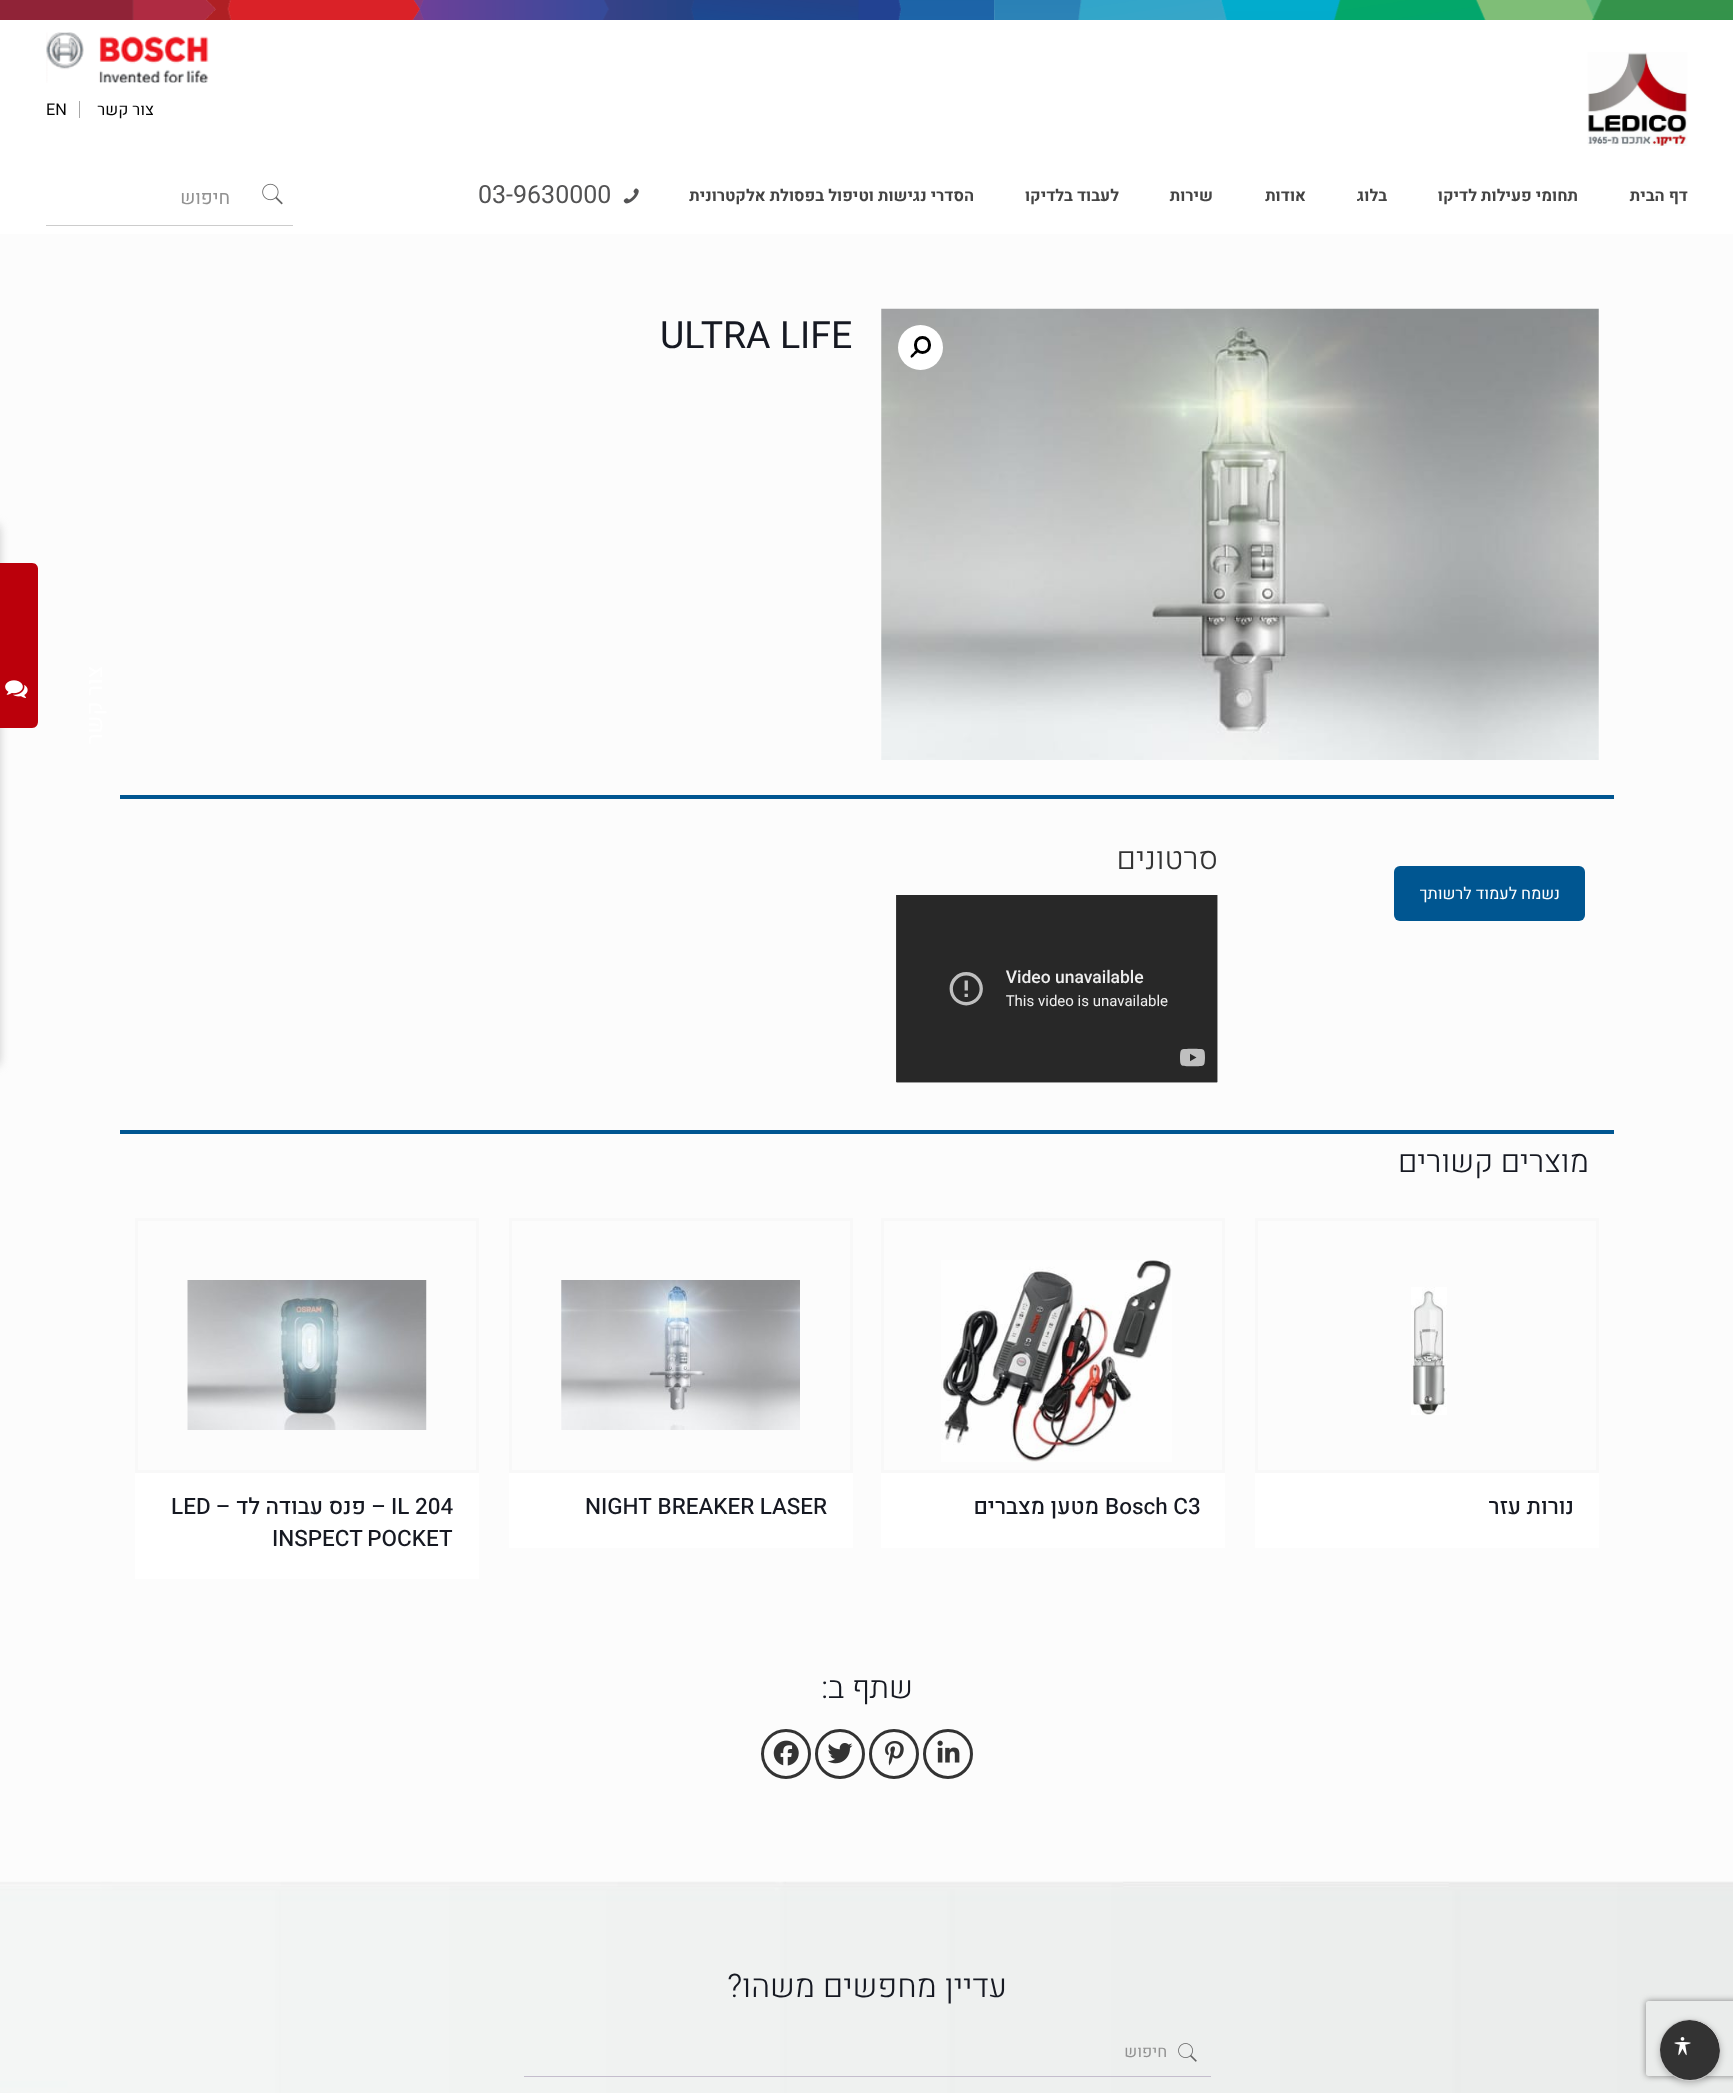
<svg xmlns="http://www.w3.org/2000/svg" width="1733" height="2093">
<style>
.a{font:16.25px Heebo;direction:rtl;fill:#050505}
.b{font:16.25px Heebo;fill:#050505}
.c{font:bold 16.25px Heebo;direction:rtl;fill:#444}
.d{font:25px Heebo;fill:#535354}
.e{font:19px Heebo;direction:rtl;fill:#929292}
.f{font:37.5px Heebo;fill:#161922}
.g{font:300 31.25px Heebo;direction:rtl;fill:#333}
.h{font:16.25px Heebo;direction:rtl;fill:#fff}
.i{font:300 31.25px Heebo;direction:rtl;fill:#161922}
.j{font:500 22.5px Heebo;direction:rtl;fill:#161922}
.k{font:500 22.5px Heebo;fill:#161922}
.l{font:300 32.5px Heebo;direction:rtl;fill:#161922}
.m{font:16.25px Heebo;direction:rtl;fill:#929292}
.n{font:22.5px Heebo;direction:rtl;fill:#fff}
</style>
<defs>
<clipPath id="clip1"><path d="M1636 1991h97v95h-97zm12.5 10h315c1.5 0 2.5 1 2.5 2.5v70c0 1.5-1 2.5-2.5 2.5h-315c-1.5 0-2.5-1-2.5-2.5v-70c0-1.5 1-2.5 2.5-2.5z" clip-rule="evenodd"/></clipPath>
<clipPath id="clip2"><rect x="1660" y="2020" width="60" height="60" rx="30"/></clipPath>
</defs>
<rect width="100%" height="100%" fill="#fcfcfc"/>
<image href="1.png" x="0" y="0" width="1733" height="20"/>
<path fill="#fff" d="M0 20h1733v214H0z"/>
<image href="2.png" x="1587" y="52" width="101" height="94"/>
<image href="3.png" x="46" y="32" width="163" height="51"/>
<path fill="#a8a8a8" d="M79 101h1v17H79z"/>
<image href="4.png" x="623" y="188" width="16" height="16"/>
<path fill="#ccc" d="M46 225h247v1H46z"/>
<image href="5.png" x="262" y="183" width="21" height="22"/>
<image href="6.png" x="881" y="308" width="718" height="452"/>
<circle fill="#fff" cx="920.5" cy="347.5" r="22.5"/>
<rect fill="none" stroke="#000" stroke-width="3" x="915.5" y="337.5" width="14" height="15" rx="7"/>
<path fill="#000" d="M918 350c1.5 1.5-2 4-3 4.5c-.5 1-3 4-4 3c-1.5-1.5 1.5-4 2.5-4.5c.5-1 3-4 4.5-3z"/>
<path fill="#005691" d="M120 795h1494v4H120z"/>
<image href="7.png" x="896" y="895" width="322" height="188"/>
<rect fill="#005691" x="1394" y="866" width="191" height="55" rx="6"/>
<path fill="#005691" d="M120 1130h1494v4H120z"/>
<path fill="none" stroke="#f8f8f8" stroke-width="3" d="M1256.5 1219.5h341v252H1256.5z"/>
<image href="8.png" x="1411" y="1287" width="36" height="128"/>
<path fill="#fff" d="M1255 1473h344v75H1255z"/>
<path fill="none" stroke="#f8f8f8" stroke-width="3" d="M882.5 1219.5h341v252H882.5z"/>
<image href="9.png" x="941" y="1260" width="231" height="202"/>
<path fill="#fff" d="M881 1473h344v75H881z"/>
<path fill="none" stroke="#f8f8f8" stroke-width="3" d="M510.5 1219.5h341v252H510.5z"/>
<image href="10.png" x="561" y="1280" width="239" height="150"/>
<path fill="#fff" d="M509 1473h344v75H509z"/>
<path fill="none" stroke="#f8f8f8" stroke-width="3" d="M136.5 1219.5h341v252H136.5z"/>
<image href="11.png" x="187" y="1280" width="240" height="150"/>
<path fill="#fff" d="M135 1473h344v106H135z"/>
<circle fill="none" stroke="#333" stroke-width="3" cx="948" cy="1754" r="23.5"/>
<image href="12.png" x="937" y="1740" width="23" height="23"/>
<circle fill="none" stroke="#333" stroke-width="3" cx="894" cy="1754" r="23.5"/>
<image href="13.png" x="885" y="1741" width="19" height="25"/>
<circle fill="none" stroke="#333" stroke-width="3" cx="840" cy="1754" r="23.5"/>
<image href="14.png" x="827" y="1743" width="26" height="21"/>
<circle fill="none" stroke="#333" stroke-width="3" cx="786" cy="1754" r="23.5"/>
<image href="15.png" x="773" y="1740" width="26" height="26"/>
<image href="16.png" x="0" y="1881" width="1733" height="212"/>
<image href="17.png" x="1178" y="2043" width="19" height="19"/>
<path fill="#c4bdcd" d="M524 2076h687v1H524z"/>
<rect fill="#cecece" filter="blur(5px)" x="-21" y="524" width="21" height="542" rx="6"/>
<path fill="#bb000b" d="M-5 728v-165h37c4 0 6 3 6 6v152c0 4-2 7-6 7z"/>
<image href="18.png" x="5" y="680" width="23" height="18"/>
<g clip-path="url(#clip1)">
<rect fill="#808080" filter="blur(3px)" x="1646" y="2001" width="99" height="75" rx="2.5"/>
</g>
<rect fill="#00000033" filter="blur(3px)" x="1659" y="2021" width="62" height="63" rx="31"/>
<circle fill="#f4f4f4" stroke="#ccc" cx="1690" cy="2050" r="30.5"/>
<g clip-path="url(#clip2)">
<rect fill="#333" x="1658" y="2020" width="62" height="63" rx="31"/>
</g>
<path fill="#00000008" d="M1689 2021c-8 0-15 3-21 8c24-25 65 6 48 35c9-19-5-43-27-43z"/>
<image href="19.png" x="1674" y="2037" width="17" height="19"/>
<text class="a" x="154" y="115">צור קשר</text>
<text class="b" x="46" y="115">EN</text>
<text class="c" x="1688" y="201">דף הבית</text>
<text class="c" x="1578" y="201">תחומי פעילות לדיקו</text>
<text class="c" x="1387" y="201">בלוג</text>
<text class="c" x="1306" y="201">אודות</text>
<text class="c" x="1213" y="201">שירות</text>
<text class="c" x="1119" y="201">לעבוד בלדיקו</text>
<text class="c" x="974" y="201">הסדרי נגישות וטיפול בפסולת אלקטרונית</text>
<text class="d" x="478" y="203">03-9630000</text>
<text class="e" x="230" y="204">חיפוש</text>
<text class="f" x="660" y="348">ULTRA LIFE</text>
<text class="g" x="1218" y="869">סרטונים</text>
<text class="h" x="1560" y="899">נשמח לעמוד לרשותך</text>
<text class="i" x="1589" y="1172">מוצרים קשורים</text>
<text class="j" x="1574" y="1514">נורות עזר</text>
<text class="k" x="1105" y="1514">Bosch C3</text>
<text class="j" x="1099" y="1514">מטען מצברים</text>
<text class="k" x="585" y="1514">NIGHT BREAKER LASER</text>
<text class="k" x="391" y="1514">IL 204</text>
<text class="j" x="386" y="1514">– פנס עבודה לד –</text>
<text class="k" x="171" y="1514">LED</text>
<text class="k" x="272" y="1546" word-spacing="-1">INSPECT POCKET</text>
<text class="i" x="913" y="1698">שתף ב:</text>
<text class="l" x="1007" y="1997">עדיין מחפשים משהו?</text>
<text class="m" x="1167" y="2057">חיפוש</text>
<text class="n" x="102" y="666" transform="rotate(-90 102 666)">צור קשר</text>
</svg>
